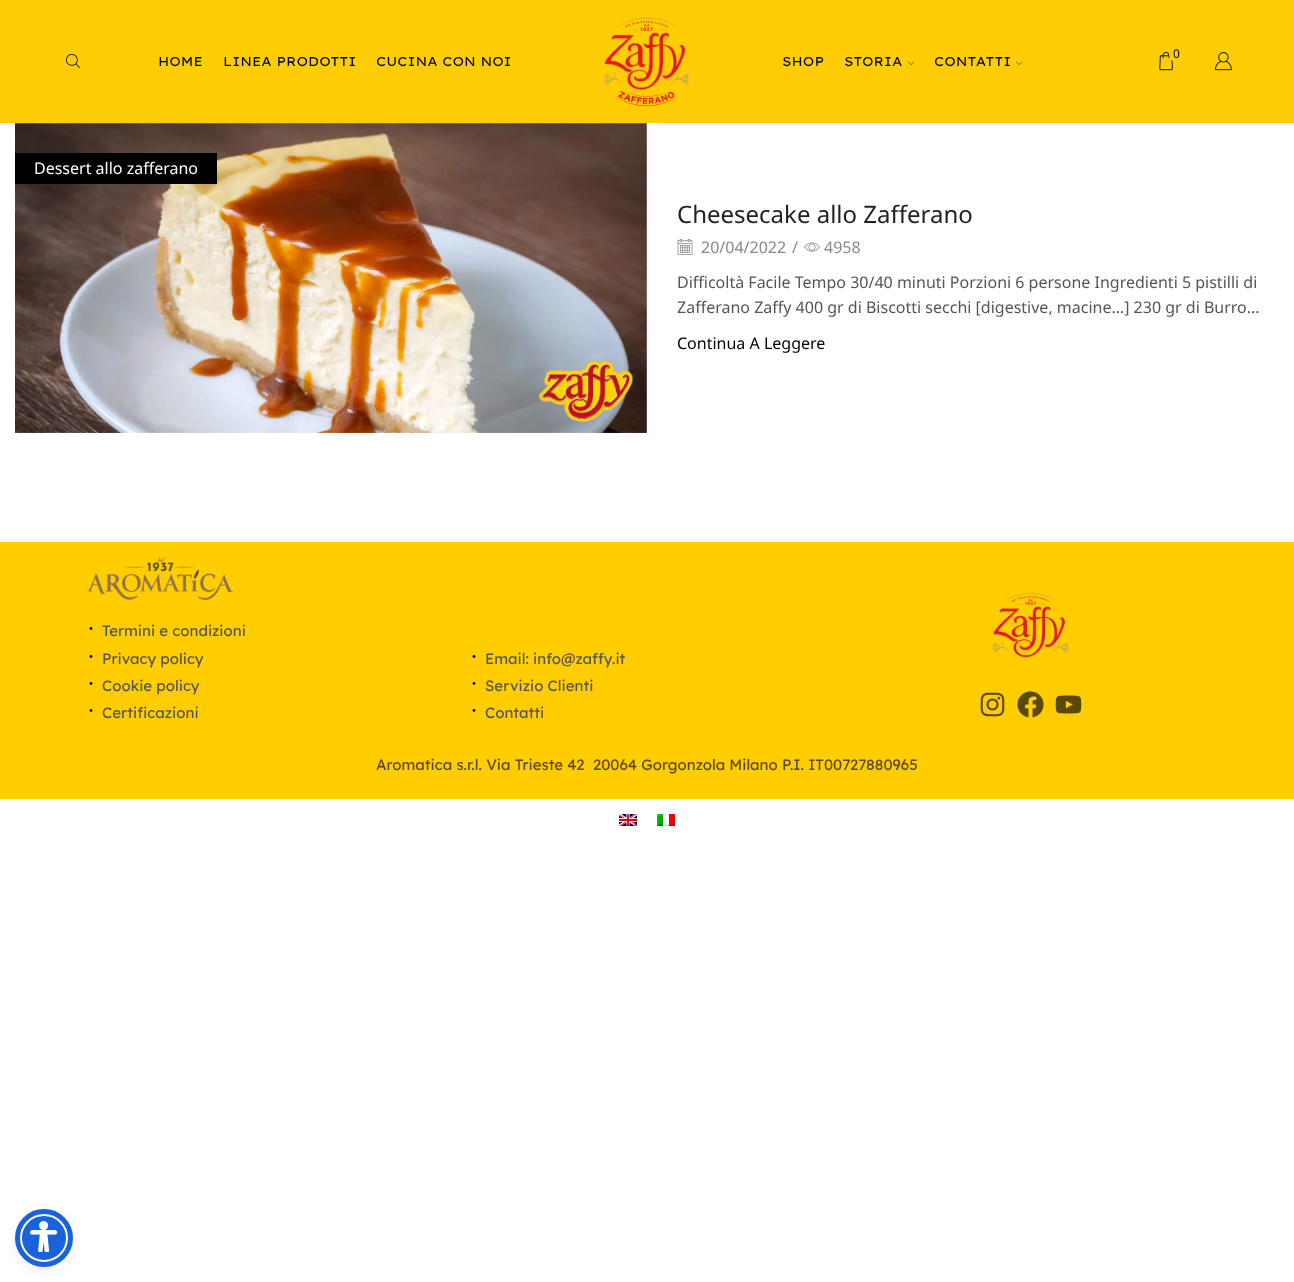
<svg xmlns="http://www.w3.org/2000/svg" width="1294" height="1282">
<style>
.a{font:12.75px Lexend Exa;fill:#000}
.b{font:12px Noto Sans;fill:#000}
.c{font:16px Noto Sans;fill:#fff}
.d{font:24px Noto Sans;fill:#222}
.e{font:16px Noto Sans;fill:#888}
.f{font:16px Noto Sans;fill:#555}
.g{font:16px Noto Sans;fill:#000}
.h{font:15px Lexend;fill:#555}
.i{font:15px Lexend;fill:#5b4801}
</style>
<rect width="100%" height="100%" fill="#fff"/>
<path fill="#ffcd06" d="M0 0h1294v123H0z"/>
<image href="1.png" x="66" y="54" width="14" height="14"/>
<image href="2.png" x="603" y="17" width="87" height="90"/>
<image href="3.png" x="908" y="61" width="6" height="4"/>
<image href="4.png" x="1016" y="61" width="7" height="4"/>
<image href="5.png" x="1159" y="52" width="14" height="19"/>
<circle fill="#ffcd06" cx="1176.5" cy="54.5" r="7.5"/>
<image href="6.png" x="1214" y="52" width="18" height="19"/>
<image href="7.png" x="15" y="123" width="632" height="310"/>
<path fill="#000" d="M15 153h202v31H15z"/>
<image href="8.png" x="677" y="239" width="16" height="16"/>
<image href="9.png" x="804" y="242" width="16" height="10"/>
<path fill="#ffcd00" d="M0 542h1294v257H0z"/>
<image href="10.png" x="87" y="557" width="146" height="43"/>
<circle fill="#000" cx="91" cy="628.5" r="1.4"/>
<circle fill="#000" cx="91" cy="656.5" r="1.4"/>
<circle fill="#000" cx="91" cy="683.5" r="1.4"/>
<circle fill="#000" cx="91" cy="710.5" r="1.4"/>
<circle fill="#000" cx="474" cy="656.5" r="1.4"/>
<circle fill="#000" cx="474" cy="683.5" r="1.4"/>
<circle fill="#000" cx="474" cy="710.5" r="1.4"/>
<image href="11.png" x="992" y="592" width="77" height="67"/>
<image href="12.png" x="980" y="692" width="25" height="25"/>
<image href="13.png" x="1017" y="691" width="27" height="27"/>
<image href="14.png" x="1055" y="695" width="27" height="19"/>
<image href="15.png" x="619" y="814" width="18" height="12"/>
<image href="16.png" x="657" y="814" width="18" height="12"/>
<rect fill="#5d649433" filter="blur(2px)" x="20" y="1216" width="48" height="48" rx="24"/>
<rect fill="#252c6126" filter="blur(7.5px)" x="20" y="1219" width="48" height="48" rx="24"/>
<circle fill="#1863dc" stroke="#fff" stroke-width="2" cx="44" cy="1238" r="23"/>
<circle fill="none" stroke="#1863dc" stroke-width="5" cx="44" cy="1238" r="26.5"/>
<image href="17.png" x="30" y="1221" width="28" height="31"/>
<text class="a" x="158" y="66">HOME</text>
<text class="a" x="223" y="66">LINEA PRODOTTI</text>
<text class="a" x="376" y="66">CUCINA CON NOI</text>
<text class="a" x="782" y="66">SHOP</text>
<text class="a" x="844" y="66">STORIA</text>
<text class="a" x="934" y="66">CONTATTI</text>
<text class="b" x="1173" y="58">0</text>
<text class="c" x="34" y="174">Dessert allo zafferano</text>
<text class="d" x="677" y="223">Cheesecake allo Zafferano</text>
<text class="e" x="701" y="253">20/04/2022</text>
<text class="e" x="792" y="253">/</text>
<text class="e" x="824" y="253">4958</text>
<text class="f" x="677" y="288">Difficoltà Facile Tempo 30/40 minuti Porzioni 6 persone Ingredienti 5 pistilli di</text>
<text class="f" x="677" y="313">Zafferano Zaffy 400 gr di Biscotti secchi [digestive, macine…] 230 gr di Burro...</text>
<text class="g" x="677" y="349">Continua A Leggere</text>
<text class="h" x="102" y="636">Termini e condizioni</text>
<text class="h" x="102" y="664">Privacy policy</text>
<text class="h" x="102" y="691">Cookie policy</text>
<text class="h" x="102" y="718">Certificazioni</text>
<text class="h" x="485" y="664">Email: info@zaffy.it</text>
<text class="h" x="485" y="691">Servizio Clienti</text>
<text class="h" x="485" y="718">Contatti</text>
<text class="i" x="376" y="770">Aromatica s.r.l. Via Trieste 42</text>
<text class="i" x="593" y="770">20064 Gorgonzola Milano P.I. IT00727880965</text>
</svg>
